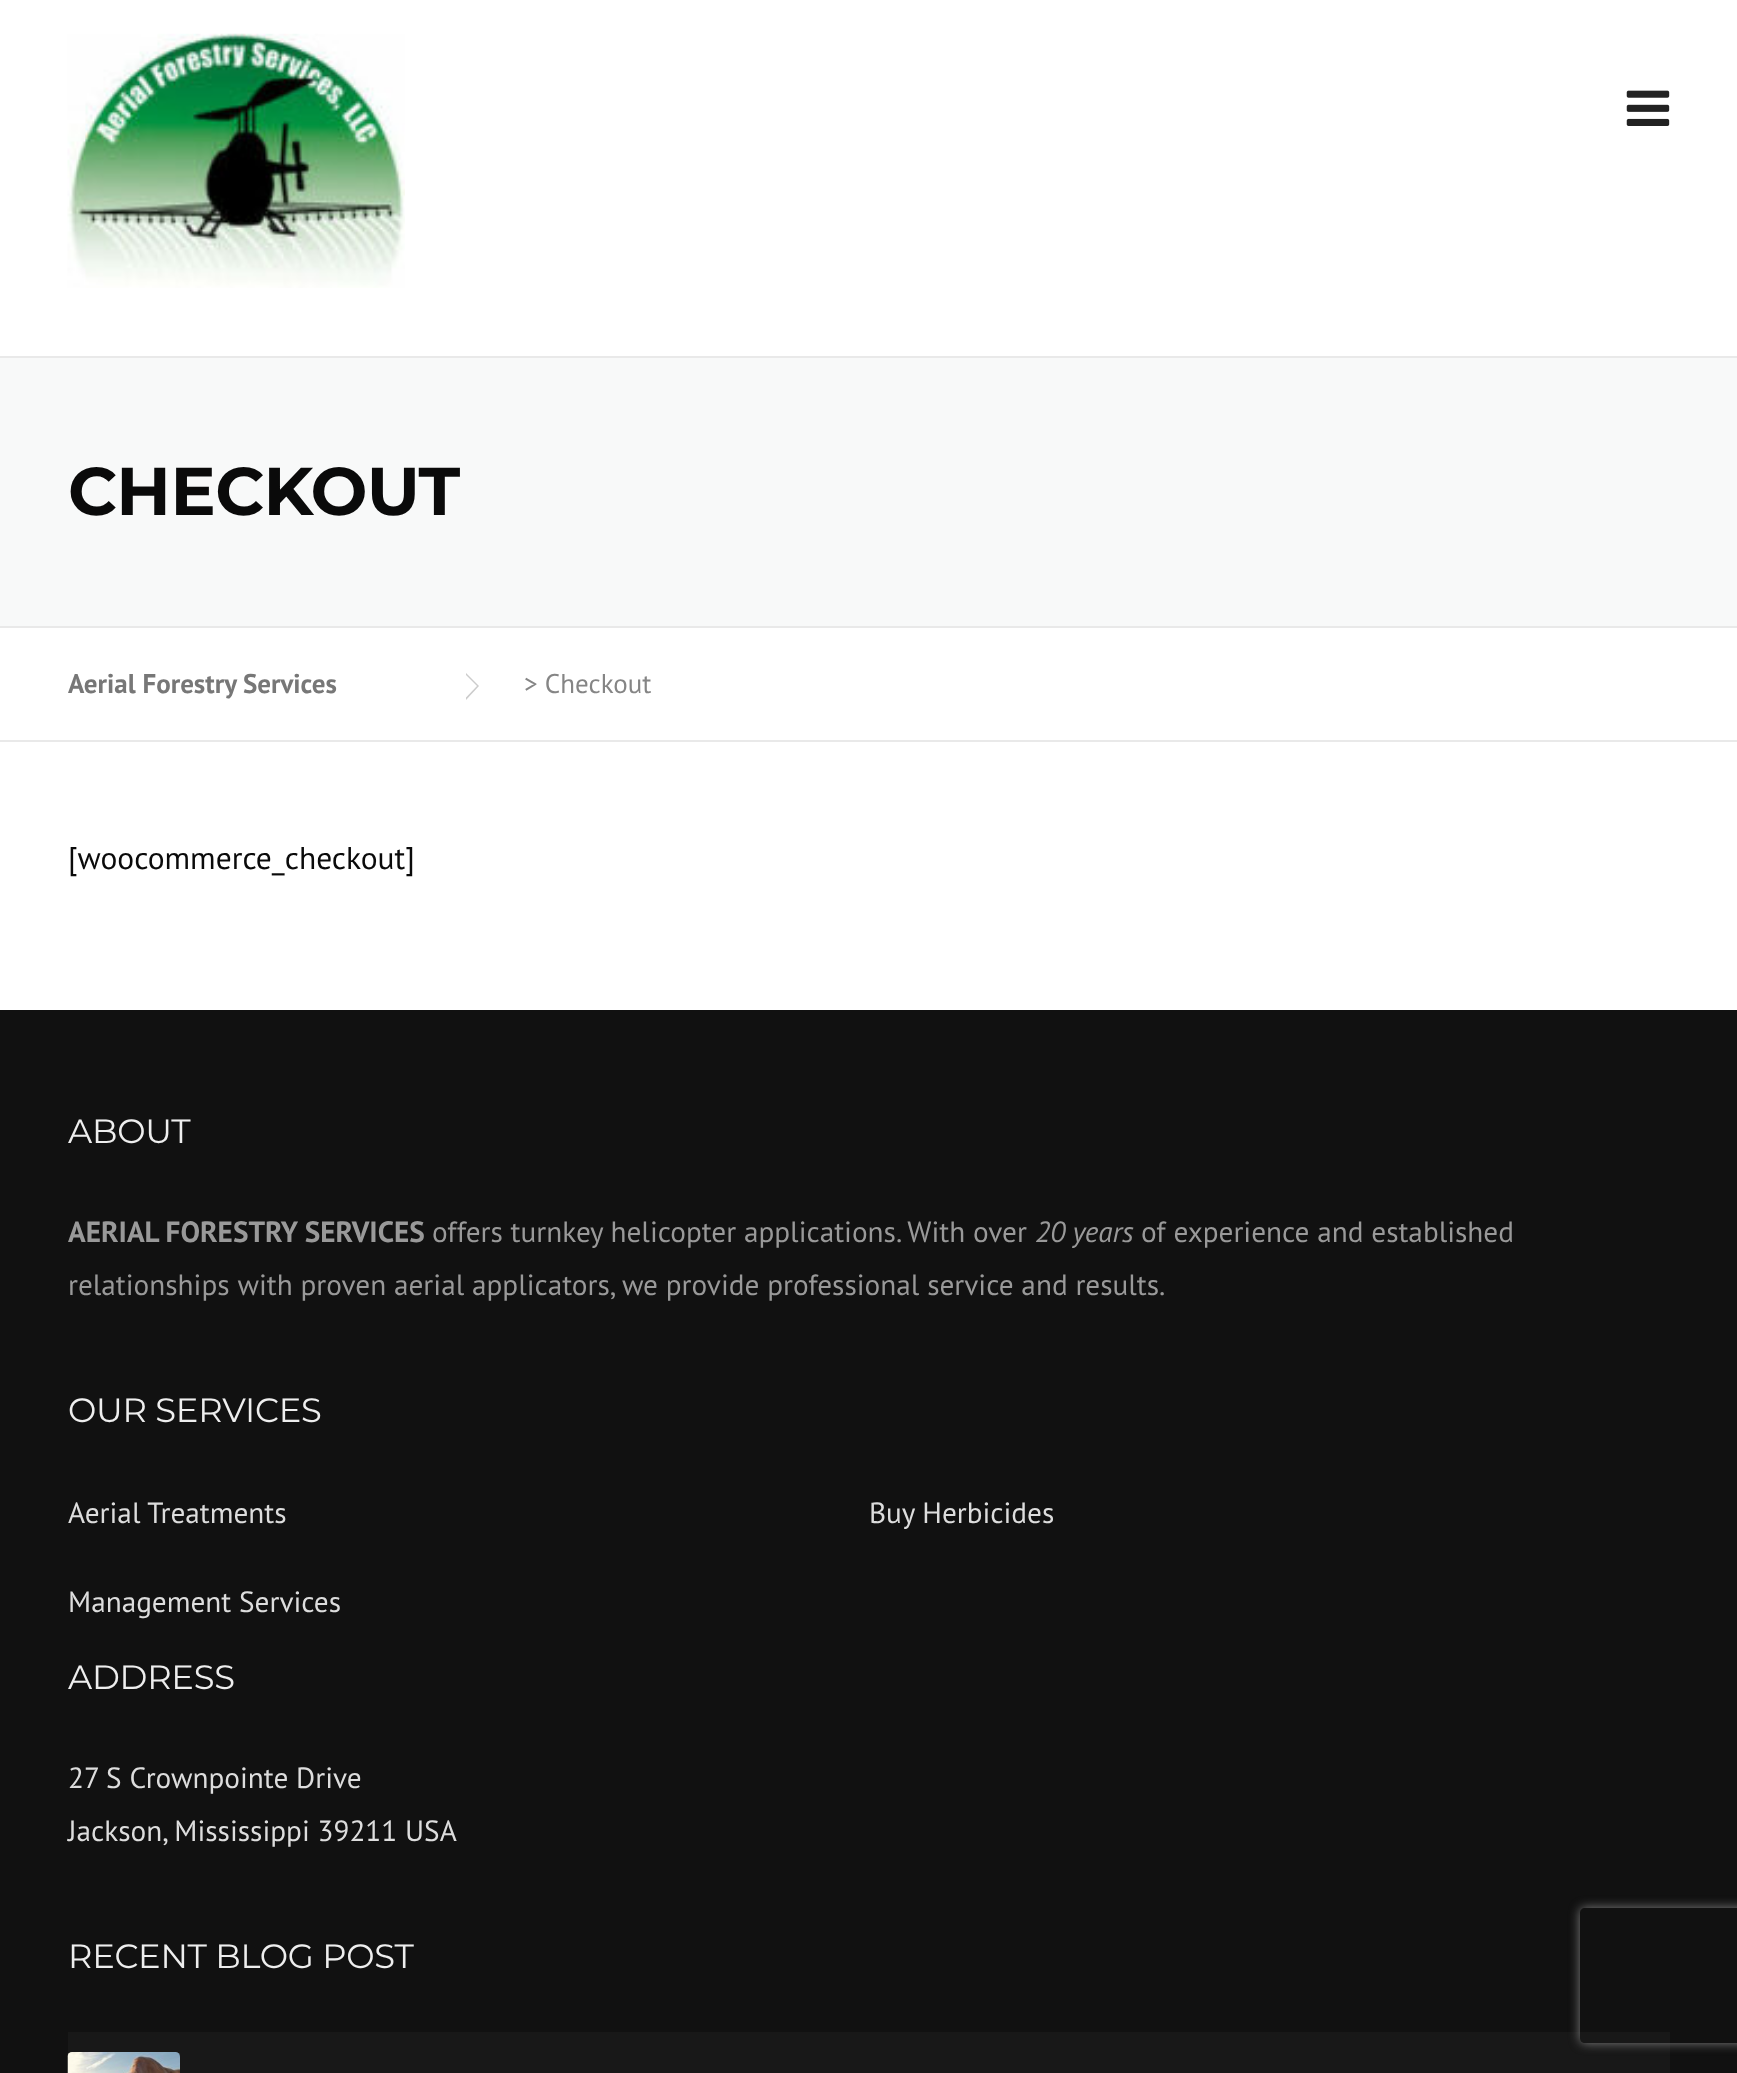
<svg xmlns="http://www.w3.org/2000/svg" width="1737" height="2073">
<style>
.a{font:bold 67.5px Montserrat;letter-spacing:-0.5px;fill:#0a0a0a}
.b{font:bold 27px PT Sans;fill:#777}
.c{font:27px PT Sans;fill:#858585}
.d{font:31.5px PT Sans;fill:#0a0a0a}
.e{font:33.75px Montserrat;letter-spacing:-0.25px;fill:#eee}
.f{font:bold 29.25px PT Sans;fill:#999}
.g{font:29.25px PT Sans;fill:#999}
.h{font:italic 29.25px PT Sans;fill:#999}
.i{font:29.25px PT Sans;fill:#ddd}
</style>
<defs>
<clipPath id="clip1"><path d="M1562 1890h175v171h-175zm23 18h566c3 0 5 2 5 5v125c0 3-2 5-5 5h-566c-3 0-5-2-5-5v-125c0-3 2-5 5-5z" clip-rule="evenodd"/></clipPath>
</defs>
<rect width="100%" height="100%" fill="#fff"/>
<image href="1.png" x="67" y="33" width="338" height="255"/>
<image href="2.png" x="1626" y="90" width="44" height="36"/>
<path fill="#f8f9f9" d="M0 358h1737v268H0z"/>
<path fill="#e9e9e9" d="M0 356h1737v2H0z"/>
<path fill="#e9e9e9" d="M0 626h1737v2H0z"/>
<path fill="#e9e9e9" d="M0 740h1737v2H0z"/>
<path fill="#ccc" d="M466 700v-27l13 13z"/>
<path fill="#fff" d="M466 697.5v-22.5l11 11z"/>
<path fill="#111" d="M0 1010h1737v1063H0z"/>
<path fill="#181818" d="M68 2032h1602v41H68z"/>
<image href="3.png" x="67" y="2052" width="113" height="21"/>
<g clip-path="url(#clip1)">
<rect fill="#808080" filter="blur(5.5px)" x="1580" y="1908" width="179" height="135" rx="5"/>
</g>
<text class="a" x="68" y="515">CHECKOUT</text>
<text class="b" x="68" y="693">Aerial Forestry Services</text>
<text class="c" x="524" y="693">&gt; Checkout</text>
<text class="d" x="68" y="869">[woocommerce_checkout]</text>
<text class="e" x="68" y="1143">ABOUT</text>
<text class="f" x="68" y="1242">AERIAL FORESTRY SERVICES</text>
<text class="g" x="432" y="1242">offers turnkey helicopter applications. With over</text>
<text class="h" x="1035" y="1242">20 years</text>
<text class="g" x="1141" y="1242">of experience and established</text>
<text class="g" x="68" y="1295">relationships with proven aerial applicators, we provide professional service and results.</text>
<text class="e" x="68" y="1422">OUR SERVICES</text>
<text class="i" x="68" y="1523">Aerial Treatments</text>
<text class="i" x="869" y="1523">Buy Herbicides</text>
<text class="i" x="68" y="1612">Management Services</text>
<text class="e" x="68" y="1689">ADDRESS</text>
<text class="i" x="68" y="1788">27 S Crownpointe Drive</text>
<text class="i" x="68" y="1841">Jackson, Mississippi 39211 USA</text>
<text class="e" x="68" y="1968">RECENT BLOG POST</text>
</svg>
